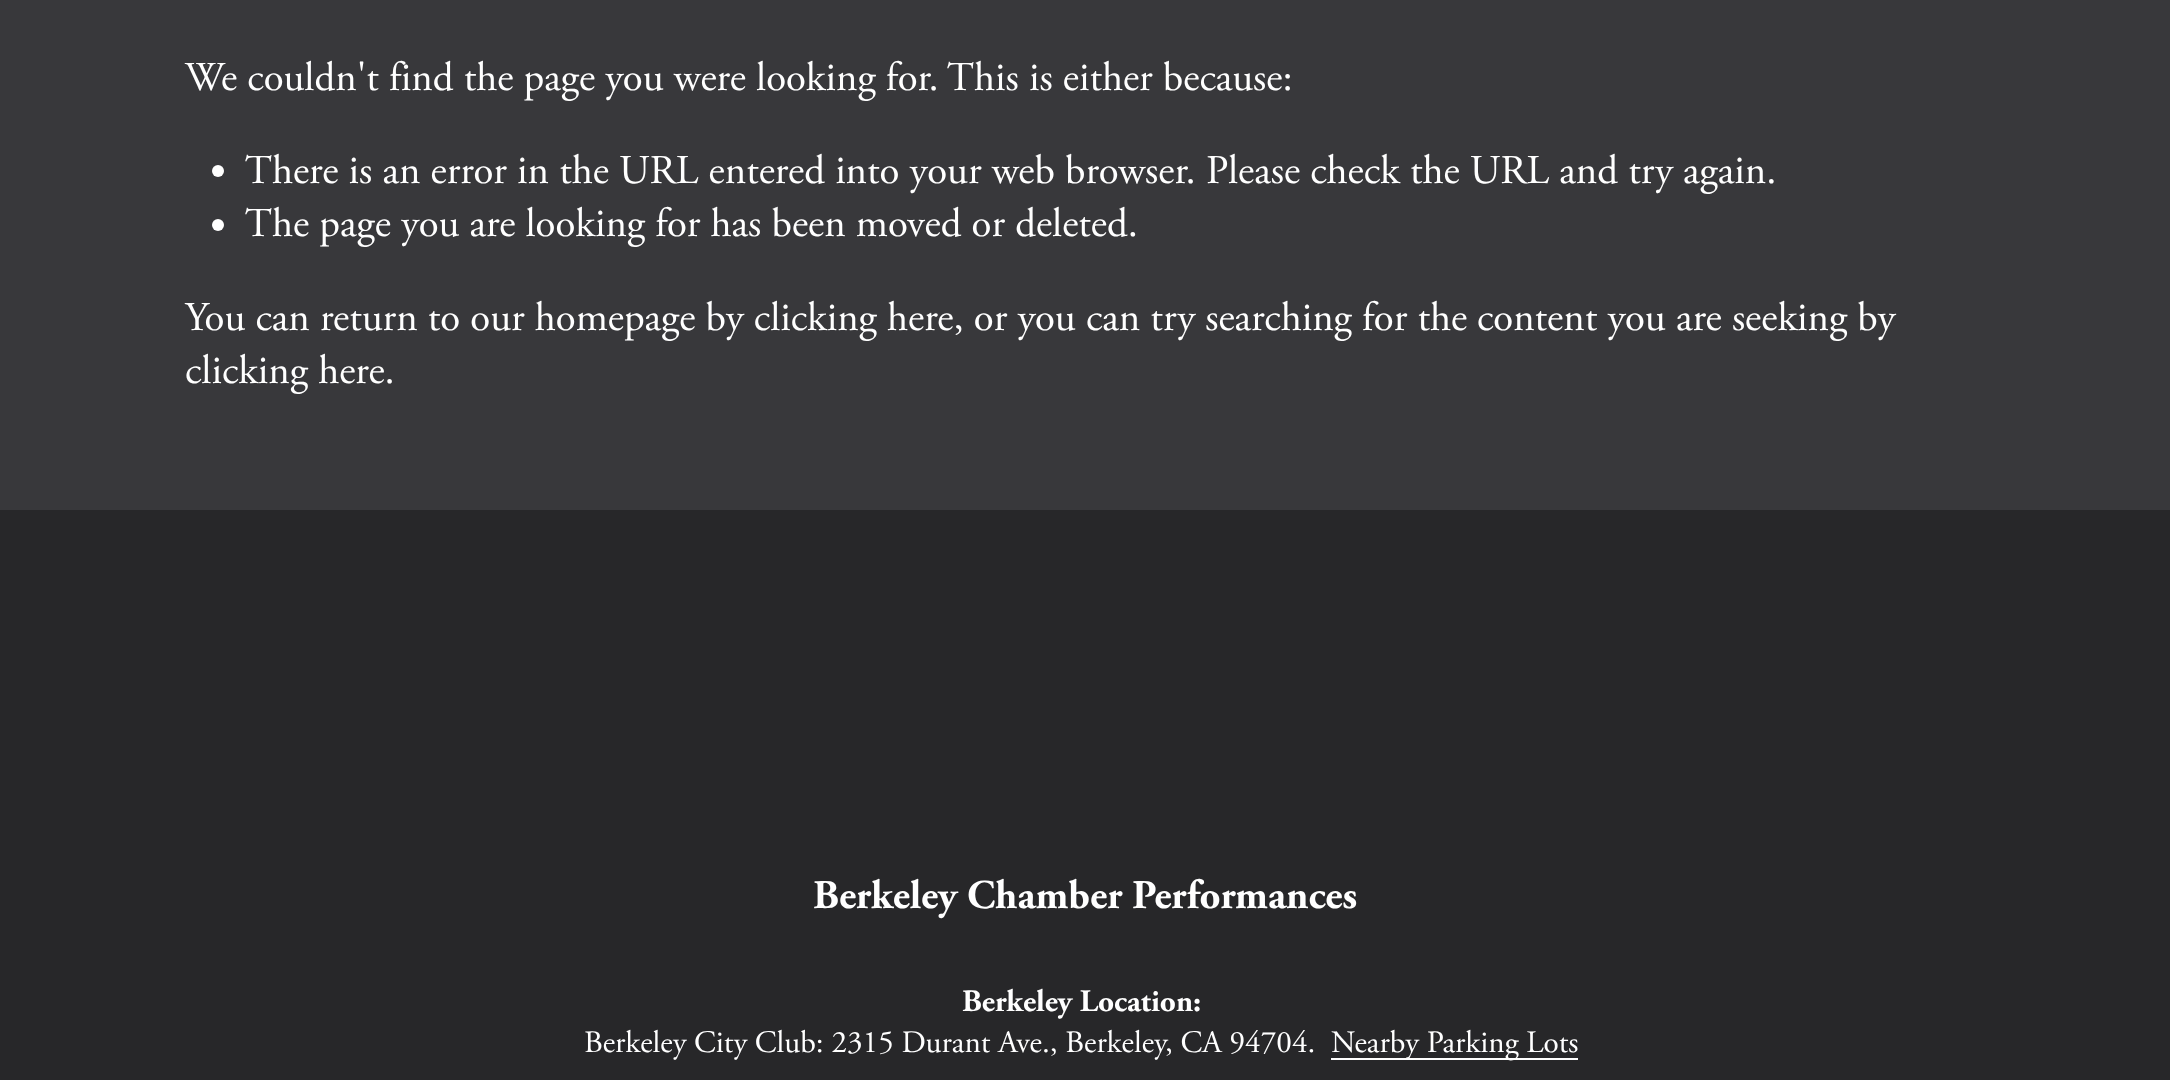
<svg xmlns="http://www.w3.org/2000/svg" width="2170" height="1080">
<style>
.a{font:40.8px Adobe Garamond;fill:#fff}
.b{font:bold 40.8px Adobe Garamond;fill:#fff}
.c{font:bold 31.2px Adobe Garamond;fill:#fff}
.d{font:31.2px Adobe Garamond;fill:#fff}
</style>
<rect width="100%" height="100%" fill="#38383b"/>
<circle fill="#fff" cx="218" cy="171" r="6"/>
<circle fill="#fff" cx="218" cy="225" r="6"/>
<path fill="#272729" d="M0 510h2170v570H0z"/>
<path fill="#fff" d="M1331 1058h247v2H1331z"/>
<text class="a" x="185" y="90">We couldn't find the page you were looking for. This is either because:</text>
<text class="a" x="245" y="183">There is an error in the URL entered into your web browser. Please check the URL and try again.</text>
<text class="a" x="245" y="236">The page you are looking for has been moved or deleted.</text>
<text class="a" x="185" y="330">You can return to our homepage by clicking here, or you can try searching for the</text>
<text class="a" x="1477" y="330">content you are seeking by</text>
<text class="a" x="185" y="383">clicking here.</text>
<text class="b" x="813" y="908">Berkeley Chamber Performances</text>
<text class="c" x="962" y="1011">Berkeley Location:</text>
<text class="d" x="584" y="1052">Berkeley City Club: 2315 Durant Ave., Berkeley, CA 94704.</text>
<text class="d" x="1331" y="1052">Nearby Parking Lots</text>
</svg>
